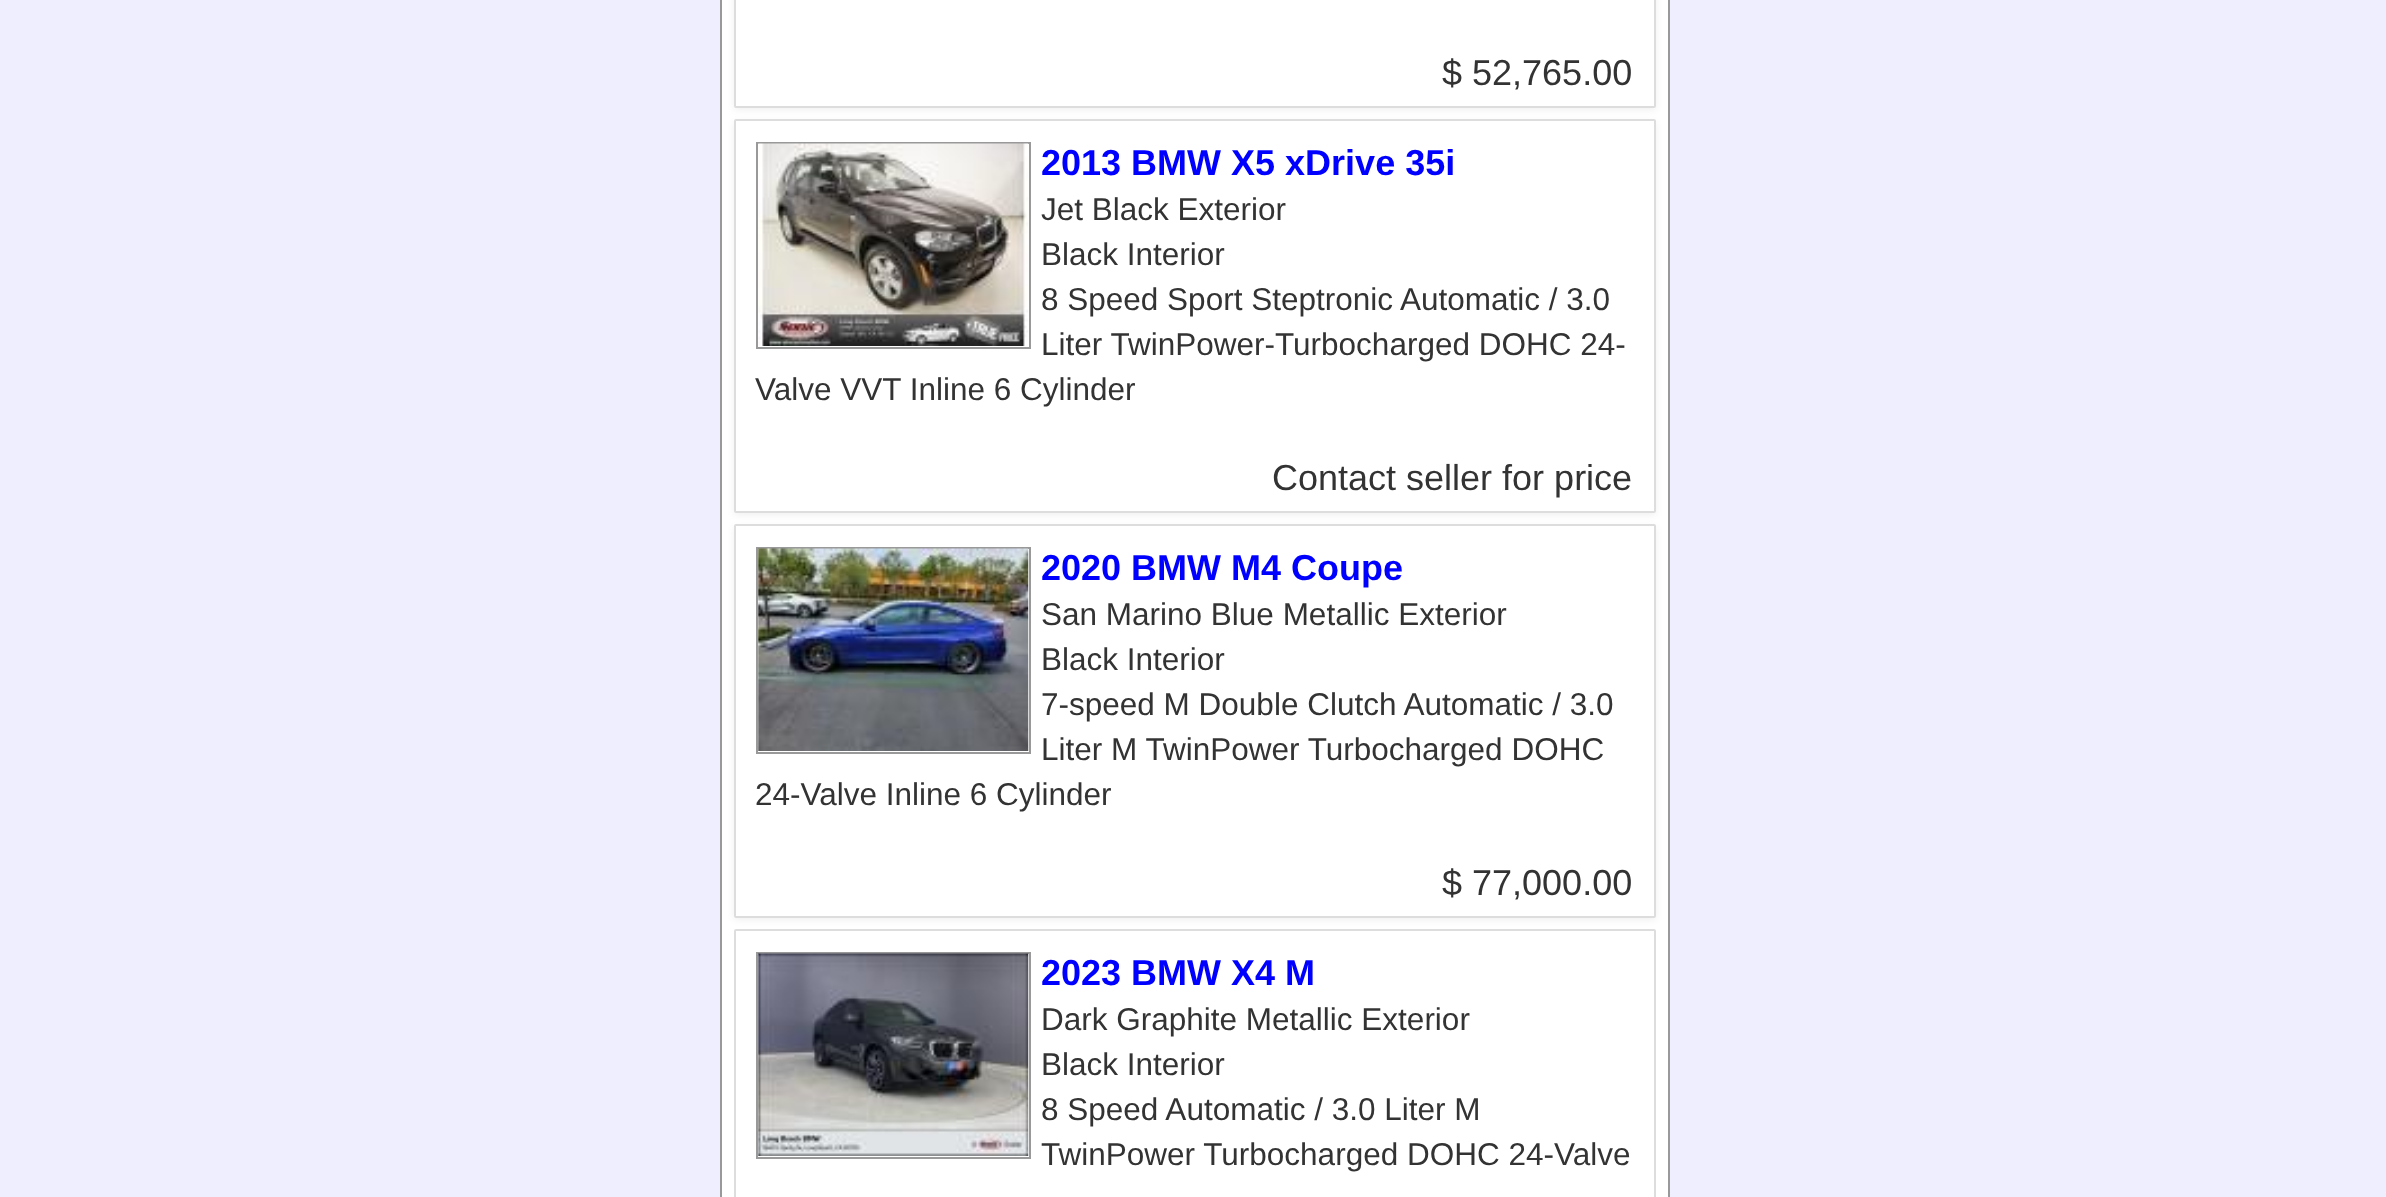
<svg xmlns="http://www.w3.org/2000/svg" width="2386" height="1197">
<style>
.a{font:36px Liberation Sans;fill:#333}
.b{font:bold 36px Liberation Sans;fill:#00f}
.c{font:31.5px Liberation Sans;fill:#333}
</style>
<defs>
<clipPath id="clip1"><path d="M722 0h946v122h-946zm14-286h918c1 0 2 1 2 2v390c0 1-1 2-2 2h-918c-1 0-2-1-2-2v-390c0-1 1-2 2-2z" clip-rule="evenodd"/></clipPath>
<clipPath id="clip2"><path d="M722 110h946v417h-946zm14 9h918c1 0 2 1 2 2v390c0 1-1 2-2 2h-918c-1 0-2-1-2-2v-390c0-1 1-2 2-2z" clip-rule="evenodd"/></clipPath>
<clipPath id="clip3"><path d="M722 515h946v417h-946zm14 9h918c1 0 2 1 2 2v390c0 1-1 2-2 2h-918c-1 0-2-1-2-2v-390c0-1 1-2 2-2z" clip-rule="evenodd"/></clipPath>
</defs>
<rect width="100%" height="100%" fill="#eef"/>
<path fill="#fff" stroke="#999" stroke-width="2" d="M721 -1h948v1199H721z"/>
<g clip-path="url(#clip1)">
<rect fill="#0000000f" filter="blur(3.5px)" x="734" y="-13" width="922" height="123" rx="2"/>
</g>
<rect fill="none" stroke="#ddd" stroke-width="2" x="735" y="-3" width="920" height="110" rx="1"/>
<g clip-path="url(#clip2)">
<rect fill="#0000000f" filter="blur(3.5px)" x="734" y="122" width="922" height="393" rx="2"/>
</g>
<rect fill="none" stroke="#ddd" stroke-width="2" x="735" y="120" width="920" height="392" rx="1"/>
<path fill="none" stroke="#999" stroke-width="2" d="M757 143h273v205H757z"/>
<image href="1.png" x="758" y="143" width="271" height="203"/>
<g clip-path="url(#clip3)">
<rect fill="#0000000f" filter="blur(3.5px)" x="734" y="527" width="922" height="393" rx="2"/>
</g>
<rect fill="none" stroke="#ddd" stroke-width="2" x="735" y="525" width="920" height="392" rx="1"/>
<path fill="none" stroke="#999" stroke-width="2" d="M757 548h273v205H757z"/>
<image href="2.png" x="758" y="548" width="271" height="203"/>
<rect fill="none" stroke="#ddd" stroke-width="2" x="735" y="930" width="920" height="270" rx="1"/>
<path fill="none" stroke="#999" stroke-width="2" d="M757 953h273v205H757z"/>
<image href="3.png" x="758" y="953" width="271" height="203"/>
<text class="a" x="1442" y="85">$ 52,765.00</text>
<text class="b" x="1041" y="175">2013 BMW X5 xDrive 35i</text>
<text class="c" x="1041" y="220">Jet Black Exterior</text>
<text class="c" x="1041" y="265">Black Interior</text>
<text class="c" x="1041" y="310">8 Speed Sport Steptronic Automatic / 3.0</text>
<text class="c" x="1041" y="355">Liter TwinPower-Turbocharged DOHC 24-</text>
<text class="c" x="755" y="400">Valve VVT Inline 6 Cylinder</text>
<text class="a" x="1272" y="490">Contact seller for price</text>
<text class="b" x="1041" y="580">2020 BMW M4 Coupe</text>
<text class="c" x="1041" y="625">San Marino Blue Metallic Exterior</text>
<text class="c" x="1041" y="670">Black Interior</text>
<text class="c" x="1041" y="715">7-speed M Double Clutch Automatic / 3.0</text>
<text class="c" x="1041" y="760">Liter M TwinPower Turbocharged DOHC</text>
<text class="c" x="755" y="805">24-Valve Inline 6 Cylinder</text>
<text class="a" x="1442" y="895">$ 77,000.00</text>
<text class="b" x="1041" y="985">2023 BMW X4 M</text>
<text class="c" x="1041" y="1030">Dark Graphite Metallic Exterior</text>
<text class="c" x="1041" y="1075">Black Interior</text>
<text class="c" x="1041" y="1120">8 Speed Automatic / 3.0 Liter M</text>
<text class="c" x="1041" y="1165">TwinPower Turbocharged DOHC 24-Valve</text>
</svg>
